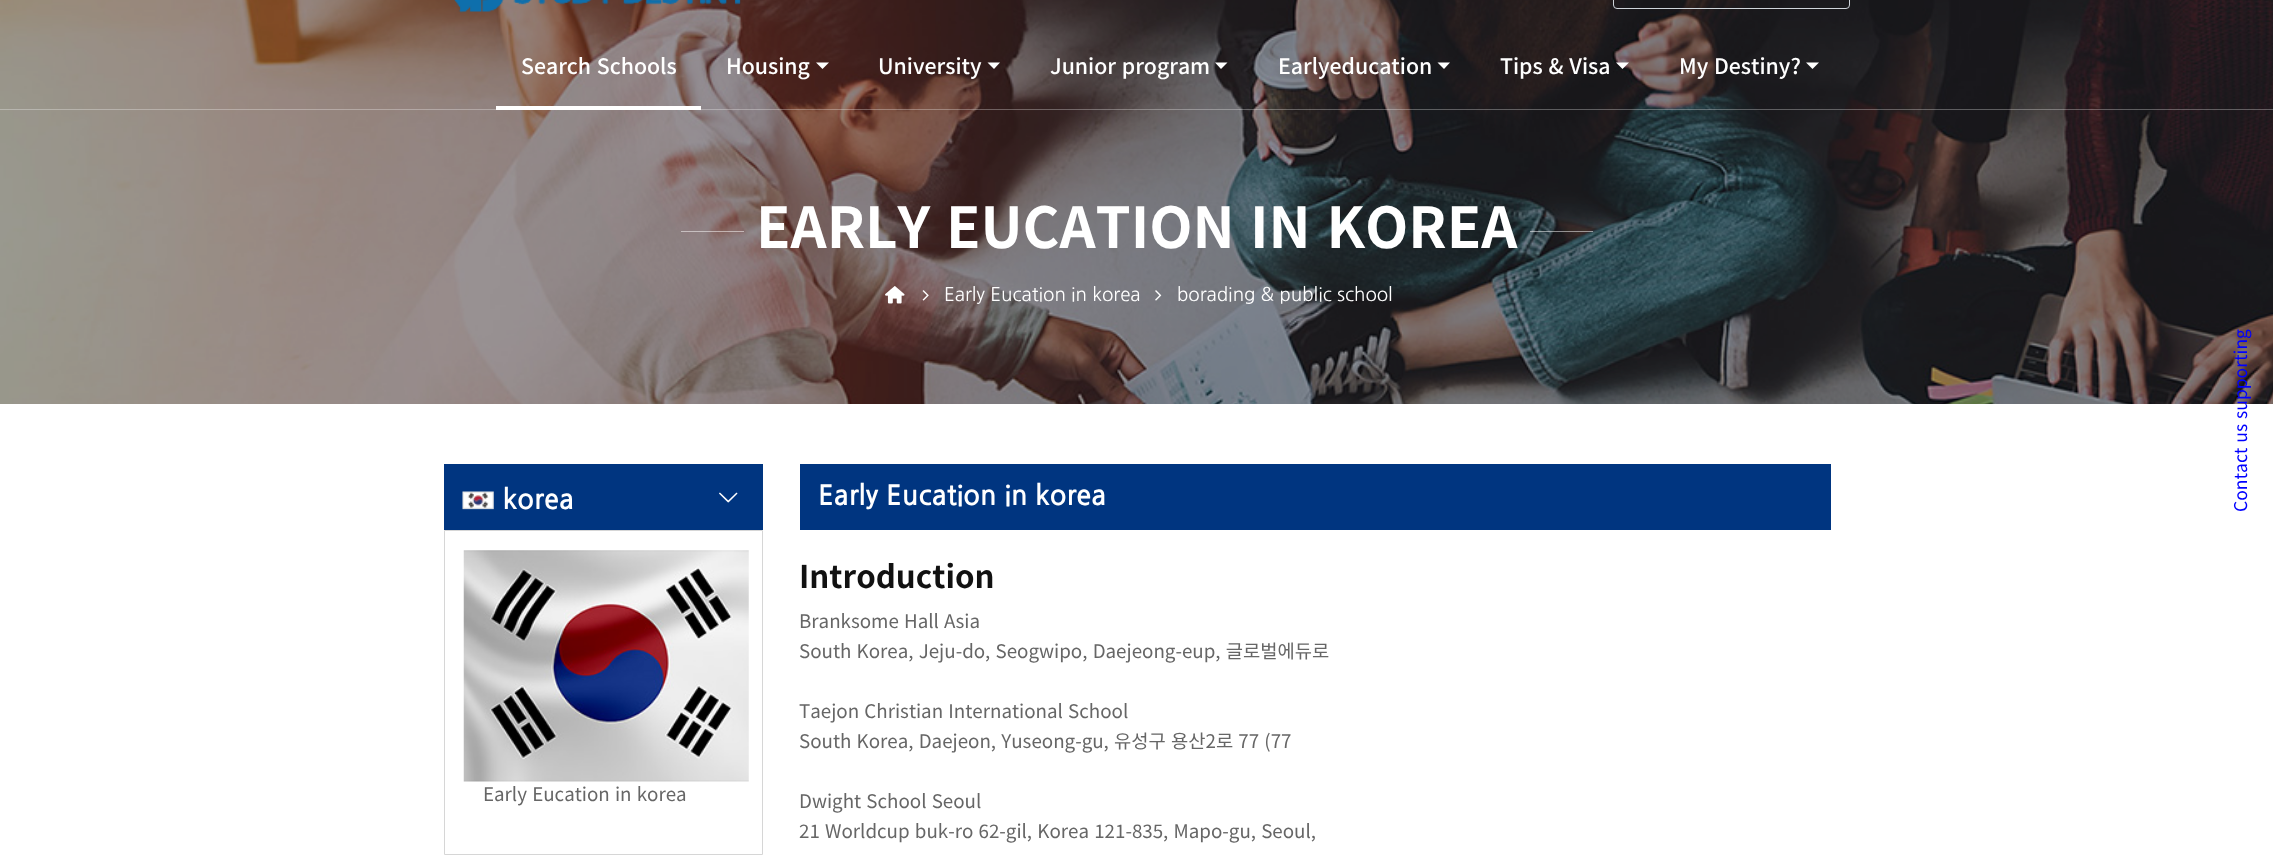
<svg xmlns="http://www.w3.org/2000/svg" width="2273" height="863">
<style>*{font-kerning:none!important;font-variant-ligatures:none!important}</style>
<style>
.a{font:500 21.25px Noto Sans KR;fill:#fff}
.b{font:17.5px Noto Sans KR;fill:#00f}
.c{font:bold 56.25px Noto Sans KR;fill:#fff}
.d{font:18.75px NanumGothic;fill:#fff}
.e{font:bold 27.5px NanumGothic;fill:#fff}
.f{font:18.75px Noto Sans KR;fill:#666}
.g{font:bold 31.25px Noto Sans KR;fill:#111}
</style>
<rect width="100%" height="100%" fill="#fff"/>
<image href="2.png" x="0" y="0" width="2273" height="404"/>
<path fill="#ffffff4d" d="M0 109h2273v1H0z"/>
<image href="1.png" x="453" y="0" width="288" height="13"/>
<rect fill="none" stroke="#ced4da" x="1613.5" y="-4.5" width="236" height="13" rx="3.5"/>
<path fill="#fff" d="M496 106h205v4H496z"/>
<path fill="#fff" d="M816 62.5h13l-6.5 6.5z"/>
<path fill="#fff" d="M987.5 62.5h12.5l-6 6.5z"/>
<path fill="#fff" d="M1215 62.5h12.5l-6.5 6.5z"/>
<path fill="#fff" d="M1437.5 62.5h12.5l-6 6.5z"/>
<path fill="#fff" d="M1616 62.5h13l-6.5 6.5z"/>
<path fill="#fff" d="M1806 62.5h13l-6.5 6.5z"/>
<path fill="#ffffff80" d="M681 231h63v1H681z"/>
<path fill="#ffffff80" d="M1530 231h63v1H1530z"/>
<image href="3.png" x="885" y="286" width="20" height="18"/>
<image href="4.png" x="922" y="290" width="7" height="11"/>
<image href="5.png" x="1155" y="290" width="7" height="11"/>
<path fill="#003580" d="M444 464h319v66H444z"/>
<image href="6.png" x="462" y="491" width="32" height="19"/>
<image href="7.png" x="719" y="492" width="19" height="11"/>
<path fill="none" stroke="#d6d6d6" d="M444.5 530.5h318v324H444.5z"/>
<image href="8.png" x="463" y="550" width="286" height="232"/>
<path fill="#003580" d="M800 464h1031v66H800z"/>
<text class="a" x="521" y="74" word-spacing="1">Search Schools</text>
<text class="a" x="726" y="74">Housing</text>
<text class="a" x="878" y="74">University</text>
<text class="a" x="1050" y="74" word-spacing="1">Junior program</text>
<text class="a" x="1278" y="74">Earlyeducation</text>
<text class="a" x="1500" y="74" word-spacing="1">Tips &amp; Visa</text>
<text class="a" x="1679" y="74" word-spacing="1">My Destiny?</text>
<text class="b" x="2247" y="512" transform="rotate(-90 2247 512)" word-spacing="1">Contact us supporting</text>
<text class="c" x="756" y="248" word-spacing="3">EARLY EUCATION</text>
<text class="c" x="1250" y="248" word-spacing="3">IN KOREA</text>
<text class="d" x="944" y="301">Early Eucation in korea</text>
<text class="d" x="1177" y="301">borading &amp; public school</text>
<text class="e" x="503" y="509">korea</text>
<text class="f" x="483" y="801" word-spacing="1">Early Eucation in korea</text>
<text class="e" x="818" y="505">Early Eucation in korea</text>
<text class="g" x="799" y="588">Introduction</text>
<text class="f" x="799" y="628" word-spacing="1">Branksome Hall Asia</text>
<text class="f" x="799" y="658" word-spacing="1">South Korea, Jeju-do, Seogwipo, Daejeong-eup, 글로벌에듀로</text>
<text class="f" x="799" y="718" word-spacing="1">Taejon Christian International School</text>
<text class="f" x="799" y="748" word-spacing="1">South Korea, Daejeon, Yuseong-gu, 유성구 용산2로 77 (77</text>
<text class="f" x="799" y="808" word-spacing="1">Dwight School Seoul</text>
<text class="f" x="799" y="838" word-spacing="1">21 Worldcup buk-ro 62-gil, Korea 121-835, Mapo-gu, Seoul,</text>
</svg>
